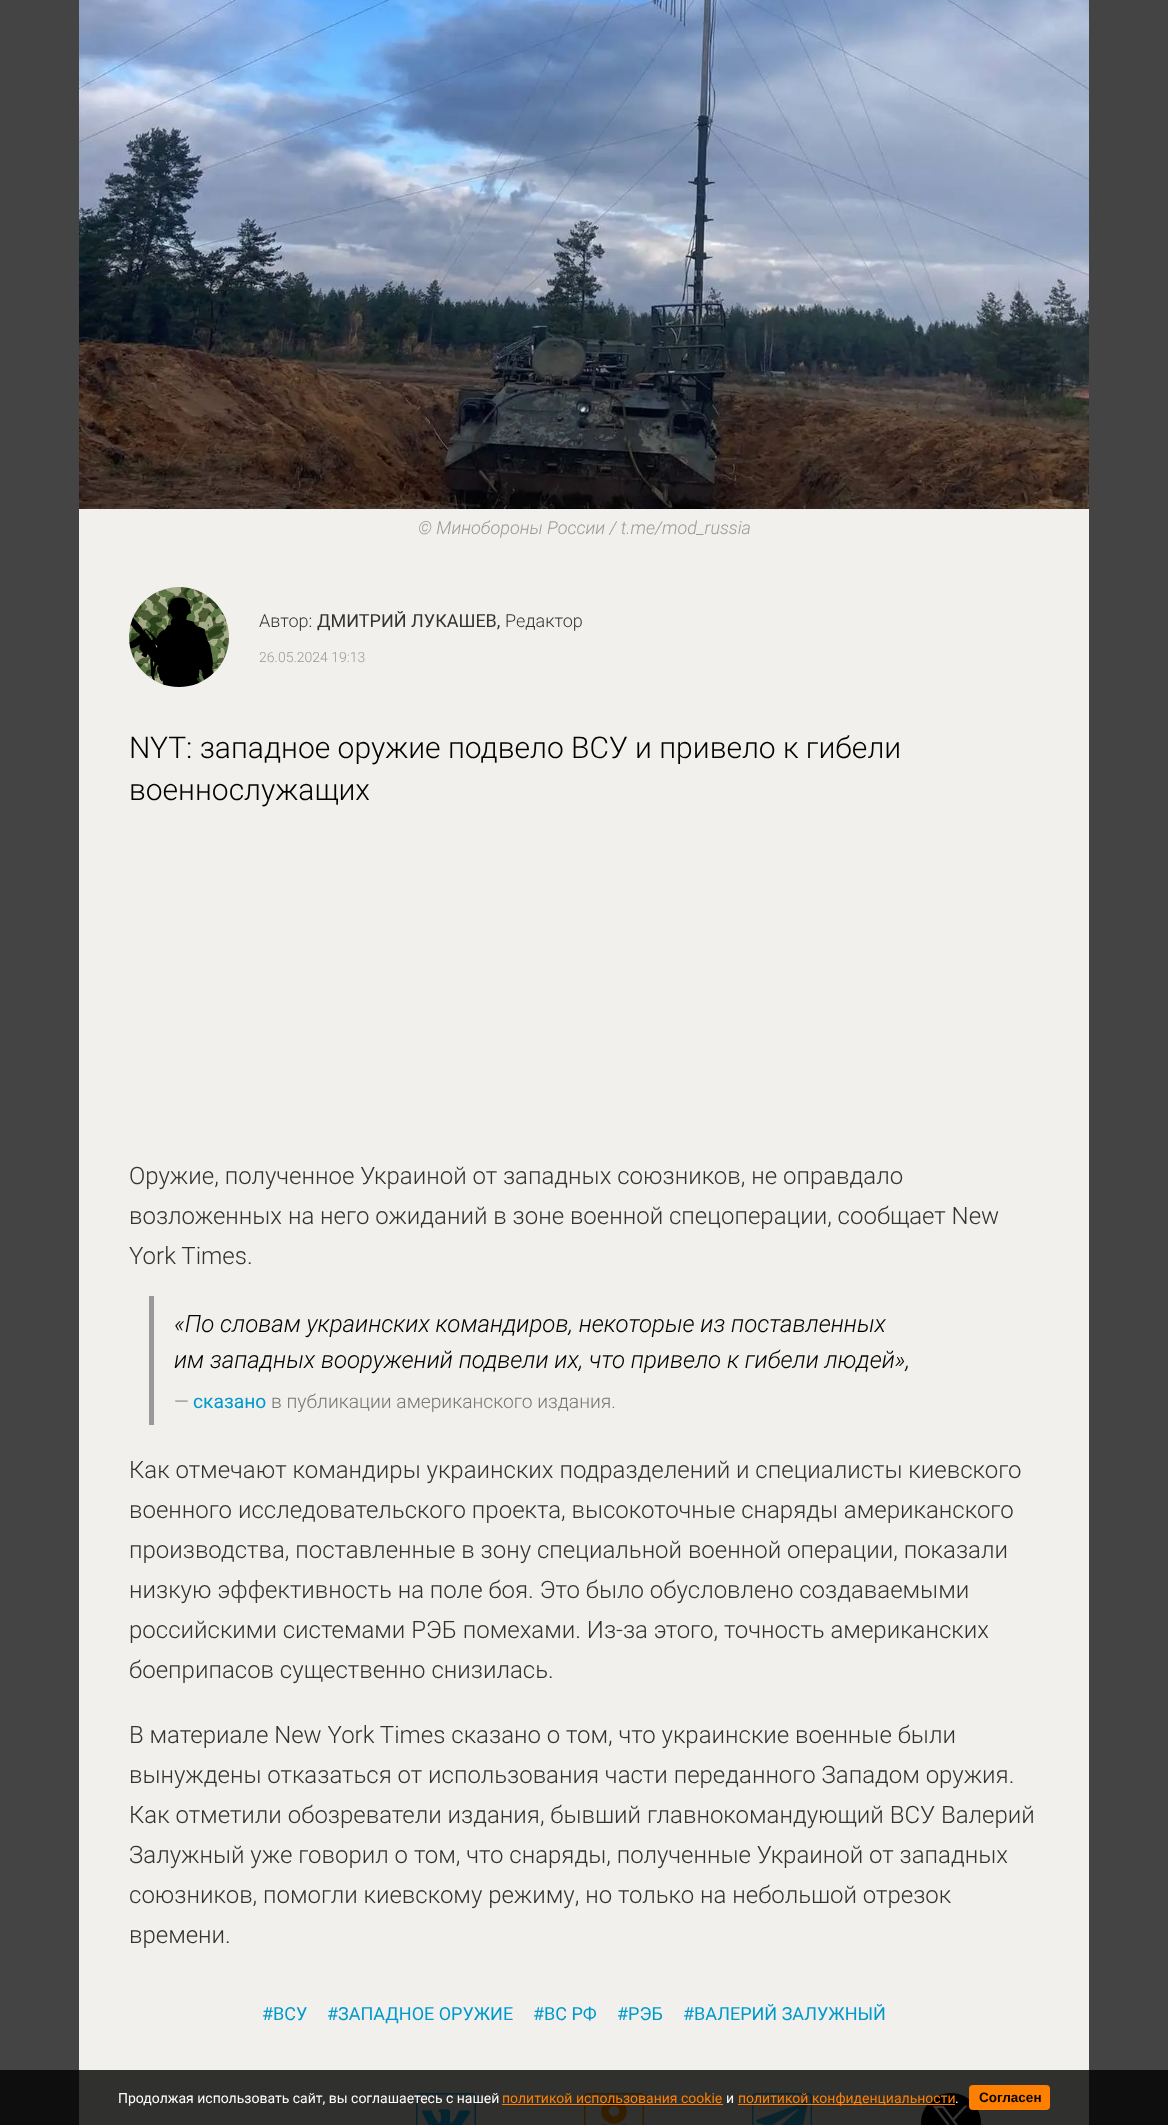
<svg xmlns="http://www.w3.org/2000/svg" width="1168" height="2125">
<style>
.a{font:italic 300 18px Roboto;fill:#999}
.b{font:300 18px Roboto;fill:#333}
.c{font:18px Roboto;fill:#333}
.d{font:300 14px Roboto;fill:#999}
.e{font:300 30px Roboto;fill:#000}
.f{font:300 24px Roboto;fill:#333}
.g{font:italic 300 24px Roboto;fill:#000}
.h{font:300 19.25px Roboto;fill:#777}
.i{font:19.25px Roboto;fill:#09c}
.j{font:18px Roboto;fill:#09c}
.k{font:14px Roboto;fill:#fff}
.l{font:14px Roboto;fill:#ff7f00}
.m{font:bold 13.5px Liberation Sans;fill:#000}
</style>
<rect width="100%" height="100%" fill="#444"/>
<path fill="#0e0e0e" d="M0 2070h1168v55H0z"/>
<path fill="#f1f0ed" d="M79 509h1010v1561H79z"/>
<path fill="#30302f" d="M79 2070h1010v55H79z"/>
<image href="1.png" x="79" y="0" width="1010" height="509"/>
<image href="2.png" x="129" y="587" width="100" height="100"/>
<path fill="#999" d="M149 1296h5v129H149z"/>
<image href="3.png" x="416" y="2093" width="60" height="32"/>
<image href="4.png" x="584" y="2093" width="60" height="32"/>
<image href="5.png" x="752" y="2093" width="60" height="32"/>
<image href="6.png" x="921" y="2093" width="60" height="32"/>
<path fill="#ff7f00" d="M502 2104h221v1H502z"/>
<path fill="#ff7f00" d="M738 2104h217v1H738z"/>
<rect fill="#ff7f00" x="969" y="2085" width="81" height="25" rx="4"/>
<text class="a" x="418" y="534">© Минобороны России / t.me/mod_russia</text>
<text class="b" x="259" y="627">Автор:</text>
<text class="c" x="317" y="627">ДМИТРИЙ ЛУКАШЕВ,</text>
<text class="b" x="505" y="627">Редактор</text>
<text class="d" x="259" y="662">26.05.2024 19:13</text>
<text class="e" x="129" y="758">NYT: западное оружие подвело ВСУ и привело к гибели</text>
<text class="e" x="129" y="800">военнослужащих</text>
<text class="f" x="129" y="1184">Оружие, полученное Украиной от западных союзников, не оправдало</text>
<text class="f" x="129" y="1224">возложенных на него ожиданий в зоне военной спецоперации, сообщает New</text>
<text class="f" x="129" y="1264">York Times.</text>
<text class="g" x="174" y="1332">«По словам украинских командиров, некоторые из поставленных</text>
<text class="g" x="174" y="1368">им западных вооружений подвели их, что привело к гибели людей»,</text>
<text class="h" x="174" y="1408">—</text>
<text class="i" x="193" y="1408">сказано</text>
<text class="h" x="271" y="1408">в публикации американского издания.</text>
<text class="f" x="129" y="1478">Как отмечают командиры украинских подразделений и специалисты киевского</text>
<text class="f" x="129" y="1518">военного исследовательского проекта, высокоточные снаряды американского</text>
<text class="f" x="129" y="1558">производства, поставленные в зону специальной военной операции, показали</text>
<text class="f" x="129" y="1598">низкую эффективность на поле боя. Это было обусловлено создаваемыми</text>
<text class="f" x="129" y="1638">российскими системами РЭБ помехами. Из-за этого, точность американских</text>
<text class="f" x="129" y="1678">боеприпасов существенно снизилась.</text>
<text class="f" x="129" y="1743">В материале New York Times сказано о том, что украинские военные были</text>
<text class="f" x="129" y="1783">вынуждены отказаться от использования части переданного Западом оружия.</text>
<text class="f" x="129" y="1823">Как отметили обозреватели издания, бывший главнокомандующий ВСУ Валерий</text>
<text class="f" x="129" y="1863">Залужный уже говорил о том, что снаряды, полученные Украиной от западных</text>
<text class="f" x="129" y="1903">союзников, помогли киевскому режиму, но только на небольшой отрезок</text>
<text class="f" x="129" y="1943">времени.</text>
<text class="j" x="262" y="2020">#ВСУ</text>
<text class="j" x="327" y="2020">#ЗАПАДНОЕ ОРУЖИЕ</text>
<text class="j" x="533" y="2020">#ВС РФ</text>
<text class="j" x="617" y="2020">#РЭБ</text>
<text class="j" x="683" y="2020">#ВАЛЕРИЙ ЗАЛУЖНЫЙ</text>
<text class="k" x="118" y="2103">Продолжая использовать сайт, вы соглашаетесь с нашей</text>
<text class="l" x="502" y="2103">политикой использования cookie</text>
<text class="k" x="726" y="2103">и</text>
<text class="l" x="738" y="2103">политикой конфиденциальности</text>
<text class="k" x="955" y="2103">.</text>
<text class="m" x="979" y="2102">Согласен</text>
</svg>
